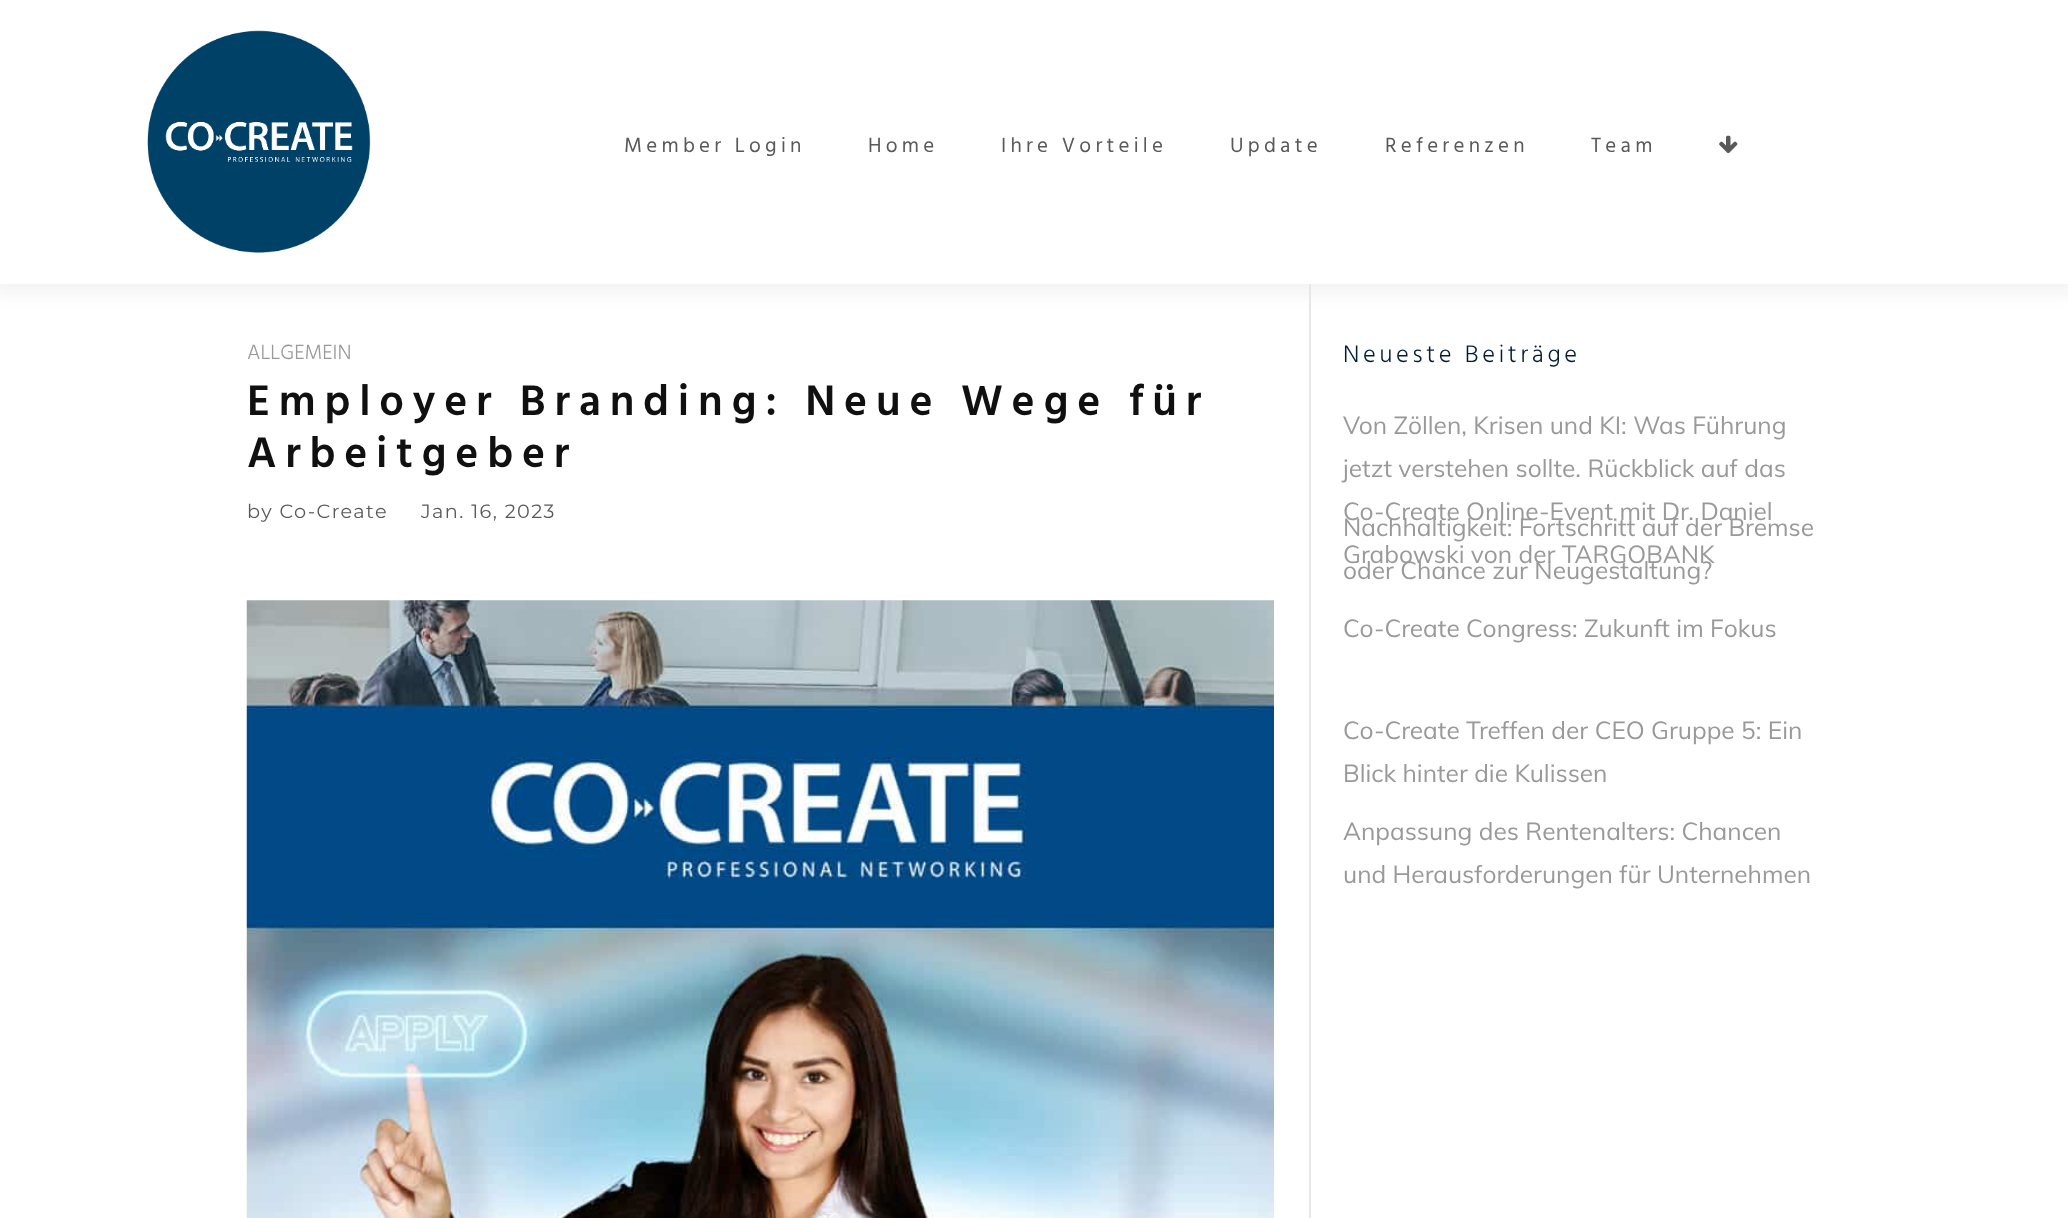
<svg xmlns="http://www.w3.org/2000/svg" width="2068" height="1218">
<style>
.a{font:21px Hind;letter-spacing:4.25px;fill:#595959}
.b{font:300 21px Hind;fill:#999}
.c{font:600 43.75px Hind;letter-spacing:8.75px;fill:#101010}
.d{font:19.25px Montserrat;letter-spacing:1.4px;fill:#595959}
.e{font:300 24.5px Hind;letter-spacing:3.7px;fill:#001c36}
.f{font:24.5px Muli;fill:#999}
</style>
<rect width="100%" height="100%" fill="#fff"/>
<path fill="#1414140f" filter="blur(9px)" d="M-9 -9h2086v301H-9z"/>
<path fill="#fff" d="M0 0h2068v284H0z"/>
<image href="1.png" x="147" y="30" width="224" height="223"/>
<image href="2.png" x="1719" y="135" width="19" height="19"/>
<image href="3.png" x="246" y="600" width="1028" height="618"/>
<path fill="#e7e7e9" d="M1309 284h2v934H1309z"/>
<text class="a" x="624" y="152">Member Login</text>
<text class="a" x="868" y="152">Home</text>
<text class="a" x="1001" y="152">Ihre Vorteile</text>
<text class="a" x="1230" y="152">Update</text>
<text class="a" x="1385" y="152">Referenzen</text>
<text class="a" x="1591" y="152">Team</text>
<text class="b" x="247" y="359">ALLGEMEIN</text>
<text class="c" x="247" y="415">Employer Branding: Neue Wege für</text>
<text class="c" x="247" y="467">Arbeitgeber</text>
<text class="d" x="247" y="518">by Co-Create</text>
<text class="d" x="421" y="518">Jan. 16, 2023</text>
<text class="e" x="1343" y="362">Neueste Beiträge</text>
<text class="f" x="1343" y="434">Von Zöllen, Krisen und KI: Was Führung</text>
<text class="f" x="1343" y="477">jetzt verstehen sollte. Rückblick auf das</text>
<text class="f" x="1343" y="520">Co-Create Online-Event mit Dr. Daniel</text>
<text class="f" x="1343" y="563">Grabowski von der TARGOBANK</text>
<text class="f" x="1343" y="536">Nachhaltigkeit: Fortschritt auf der Bremse</text>
<text class="f" x="1343" y="579">oder Chance zur Neugestaltung?</text>
<text class="f" x="1343" y="637">Co-Create Congress: Zukunft im Fokus</text>
<text class="f" x="1343" y="739">Co-Create Treffen der CEO Gruppe 5: Ein</text>
<text class="f" x="1343" y="782">Blick hinter die Kulissen</text>
<text class="f" x="1343" y="840">Anpassung des Rentenalters: Chancen</text>
<text class="f" x="1343" y="883">und Herausforderungen für Unternehmen</text>
</svg>
